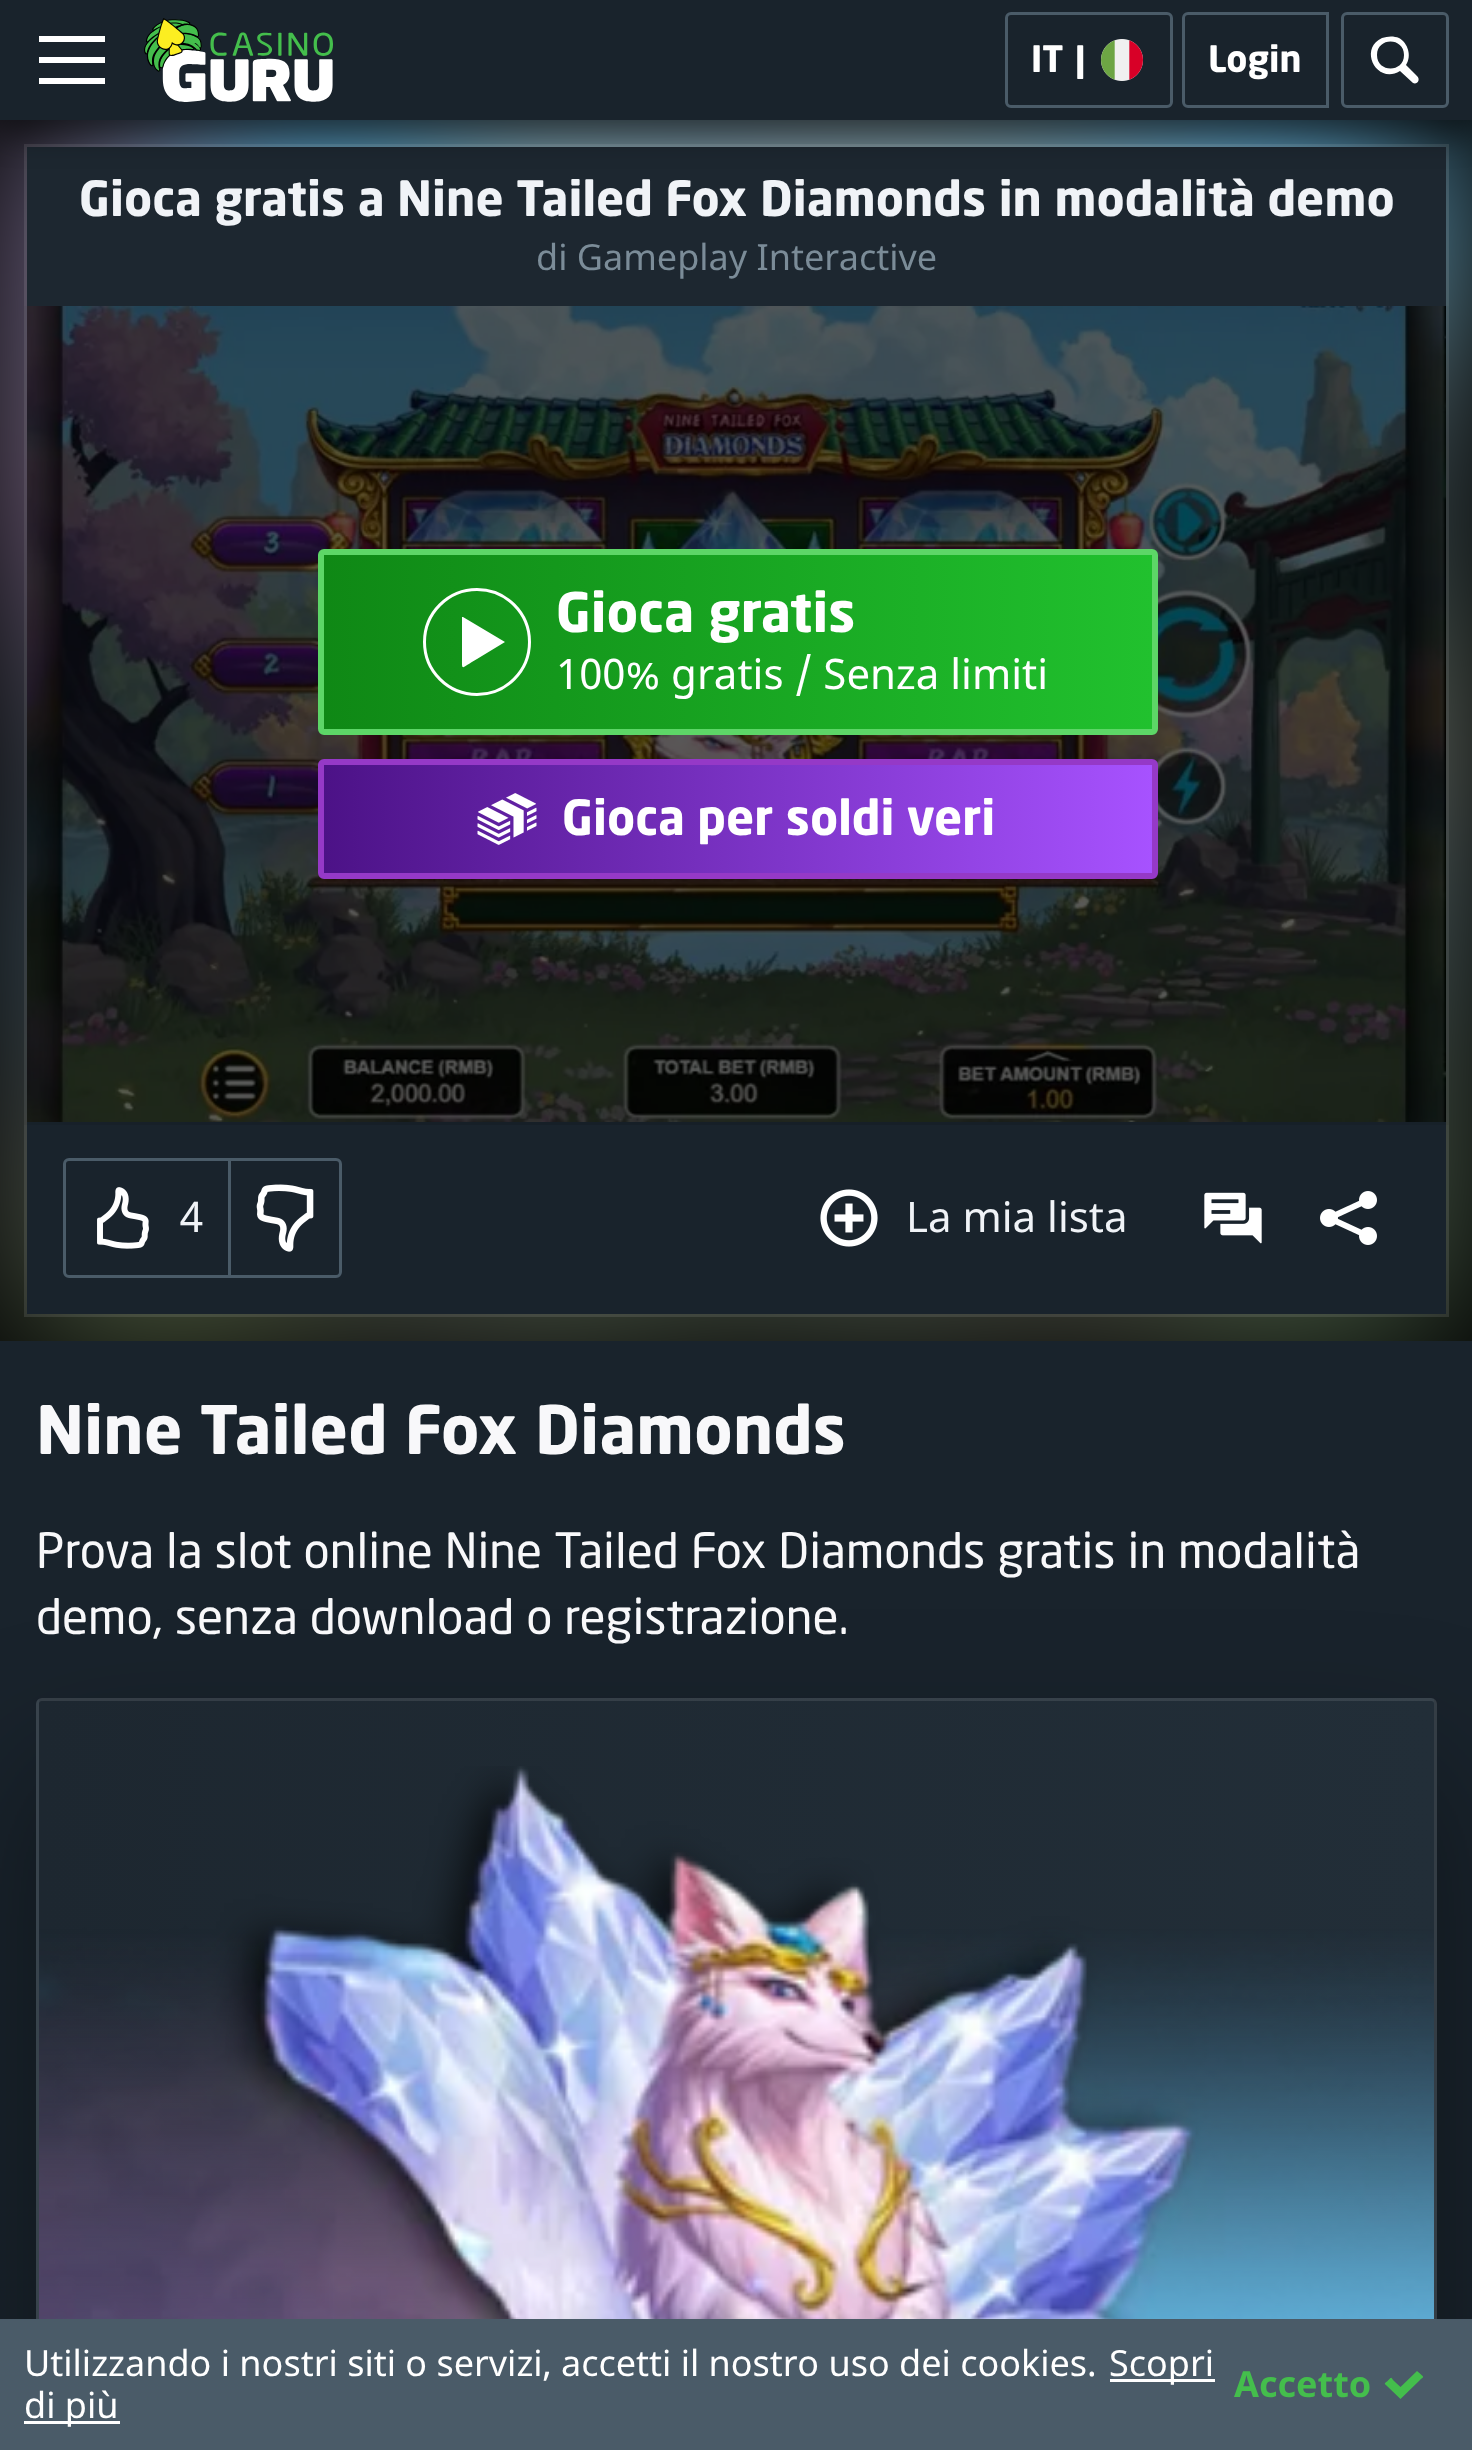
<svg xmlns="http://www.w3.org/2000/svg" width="1472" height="2450">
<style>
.a{font:bold 36px 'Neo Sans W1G';fill:#fff}
.b{font:bold 48px 'Neo Sans W1G';fill:#f0f3f7}
.c{font:36px Noto Sans;fill:#7b8c98}
.d{font:bold 54px 'Neo Sans W1G';fill:#fff}
.e{font:42px Noto Sans;fill:#fff}
.f{font:bold 48px 'Neo Sans W1G';fill:#fff}
.g{font:42px Noto Sans;fill:#f0f3f7}
.h{font:bold 66px 'Neo Sans W1G';fill:#f8f8fa}
.i{font:48px 'Neo Sans W1G';fill:#f8f8fa}
.j{font:36px Noto Sans;fill:#fff}
.k{font:bold 36px Noto Sans;fill:#44be4c}
</style>
<defs>
<linearGradient id="g1" gradientUnits="userSpaceOnUse" x1="1152" y1="642" x2="324" y2="642"><stop offset="0" stop-color="#21c12e"/><stop offset="1" stop-color="#0f8815"/></linearGradient>
<linearGradient id="g2" gradientUnits="userSpaceOnUse" x1="324" y1="819" x2="1152" y2="819"><stop offset="0" stop-color="#4c1287"/><stop offset="1" stop-color="#a752ff"/></linearGradient>
<clipPath id="clip1"><rect x="36" y="1698" width="1401" height="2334" rx="6"/></clipPath>
<linearGradient id="g3" gradientUnits="userSpaceOnUse" x1="39" y1="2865" x2="-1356" y2="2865"><stop offset="0" stop-color="#222e38"/><stop offset="1" stop-color="#1d2730"/></linearGradient>
<linearGradient id="g4" gradientUnits="userSpaceOnUse" x1="1434" y1="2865" x2="39" y2="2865"><stop offset="0" stop-color="#222e38"/><stop offset="1" stop-color="#1d2730"/></linearGradient>
<linearGradient id="g5" gradientUnits="userSpaceOnUse" x1="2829" y1="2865" x2="1434" y2="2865"><stop offset="0" stop-color="#222e38"/><stop offset="1" stop-color="#1d2730"/></linearGradient>
</defs>
<rect width="100%" height="100%" fill="#000"/>
<image href="3.png" x="0" y="120" width="1472" height="1221"/>
<path fill="none" stroke="#ffffff1a" stroke-width="3" d="M25.5 145.5h1422v1170H25.5z"/>
<path fill="#1d2730" d="M27 147h1419v159H27z"/>
<path fill="#00000073" filter="blur(15px)" d="M0 15h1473v120H0z"/>
<path fill="#19232c" d="M0 0h1472v120H0z"/>
<path fill="#fff" d="M39 36h66v6H39z"/>
<path fill="#fff" d="M39 57h66v6H39z"/>
<path fill="#fff" d="M39 78h66v6H39z"/>
<image href="1.png" x="144" y="18" width="189" height="84"/>
<rect fill="none" stroke="#4a5b68" stroke-width="3" x="1006.5" y="13.5" width="165" height="93" rx="4.5"/>
<image href="2.png" x="1101" y="39" width="42" height="42"/>
<path fill="none" stroke="#4a5b68" stroke-width="3" d="M1188 13.5h139.5v93h-139.5c-2.5 0-4.5-2-4.5-4.5v-84c0-2.5 2-4.5 4.5-4.5z"/>
<rect fill="none" stroke="#4a5b68" stroke-width="3" x="1342.5" y="13.5" width="105" height="93" rx="4.5"/>
<path fill="#fff" d="M1417 76l-11-11c6-9 2-22-7-27c-5-2-11-2-17 0c-24 11-5 47 18 33l13 12c4 2 8-3 4-7zm-40-21c0-18 27-18 27 0c0 18-27 18-27 0z"/>
<path fill="#000" d="M27 306h1419v816H27z"/>
<path fill="#19232c" d="M27 1122h1419v192H27z"/>
<image href="4.png" x="24" y="306" width="1425" height="819"/>
<path fill="url(#g1)" d="M324 555h828v174H324z"/>
<rect fill="none" stroke="#5dd667" stroke-width="6" x="321" y="552" width="834" height="180" rx="3"/>
<circle fill="none" stroke="#fff" stroke-width="3" cx="477" cy="642" r="52.5"/>
<path fill="#fff" d="M462 617v41c0 14-1 10 15 1l28-17l-42-25z"/>
<path fill="url(#g2)" d="M324 765h828v108H324z"/>
<rect fill="none" stroke="#9539c7" stroke-width="6" x="321" y="762" width="834" height="114" rx="3"/>
<image href="5.png" x="477" y="793" width="60" height="52"/>
<rect fill="none" stroke="#4a5b68" stroke-width="3" x="64.5" y="1159.5" width="276" height="117" rx="4.5"/>
<image href="6.png" x="97" y="1187" width="52" height="62"/>
<path fill="#4a5b68" d="M228 1161h3v114H228z"/>
<image href="7.png" x="256" y="1184" width="58" height="68"/>
<image href="8.png" x="820" y="1189" width="58" height="58"/>
<image href="9.png" x="1204" y="1192" width="58" height="52"/>
<image href="10.png" x="1320" y="1191" width="57" height="54"/>
<path fill="#19232c" d="M0 1341h1472v978H0z"/>
<rect fill="#00000066" filter="blur(72px)" x="36" y="1770" width="1401" height="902" rx="6"/>
<g clip-path="url(#clip1)">
<path fill="url(#g3)" d="M36 1698h3v621H36z"/>
<path fill="url(#g4)" d="M39 1698h1395v621H39z"/>
<path fill="url(#g5)" d="M1434 1698h3v621H1434z"/>
</g>
<rect fill="none" stroke="#ffffff1a" stroke-width="3" x="37.5" y="1699.5" width="1398" height="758" rx="4.5"/>
<image href="11.png" x="39" y="1766" width="1395" height="553"/>
<path fill="#4a5b68" d="M0 2319h1472v131H0z"/>
<path fill="#fff" d="M1110 2379h105v3H1110z"/>
<path fill="#fff" d="M24 2421h96v3H24z"/>
<path fill="#44be4c" d="M1400.5 2399l-13-12.5c-4-4-3.5-2 1-6.5c3.5-3.5 2-3 5.5 1l6.5 6l16.5-16l3.5 3c4 4 3.5 2-1 6.5z"/>
<text class="a" x="1031" y="72">IT</text>
<text class="a" x="1075" y="72">|</text>
<text class="a" x="1208" y="72">Login</text>
<text class="b" x="79" y="216">Gioca gratis a Nine Tailed Fox Diamonds in modalità demo</text>
<text class="c" x="536" y="270">di Gameplay Interactive</text>
<text class="d" x="556" y="632">Gioca gratis</text>
<text class="e" x="556" y="689">100% gratis / Senza limiti</text>
<text class="f" x="562" y="835">Gioca per soldi veri</text>
<text class="g" x="180" y="1232">4</text>
<text class="g" x="906" y="1232">La mia lista</text>
<text class="h" x="36" y="1454">Nine Tailed Fox Diamonds</text>
<text class="i" x="36" y="1568">Prova la slot online Nine Tailed Fox Diamonds gratis in modalità</text>
<text class="i" x="36" y="1634">demo, senza download o registrazione.</text>
<text class="j" x="24" y="2376">Utilizzando i nostri siti o servizi, accetti il nostro uso dei cookies.</text>
<text class="j" x="1109" y="2376">Scopri</text>
<text class="j" x="24" y="2418">di più</text>
<text class="k" x="1234" y="2397">Accetto</text>
</svg>
